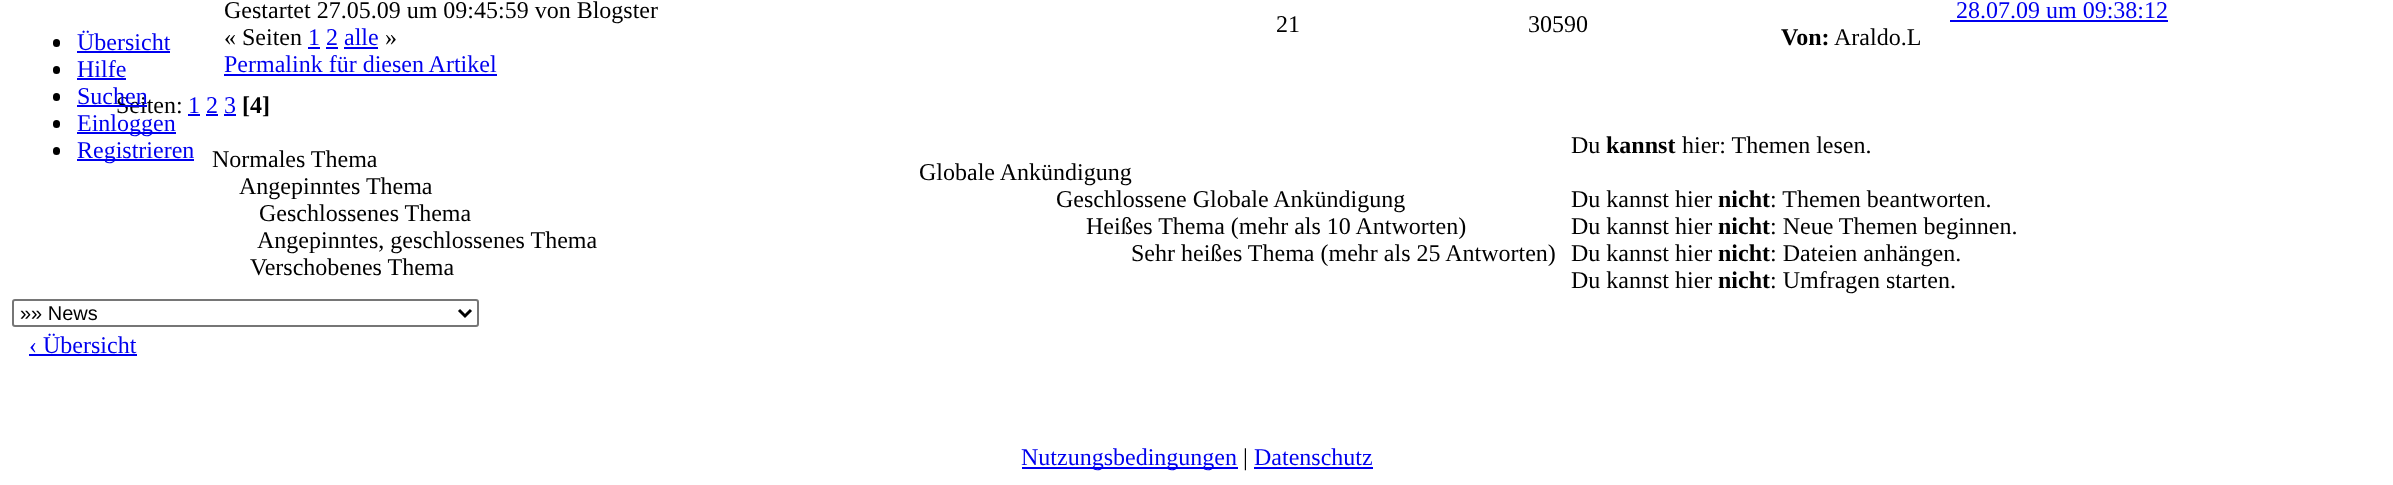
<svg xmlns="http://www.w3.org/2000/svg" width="2393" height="485">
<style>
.a{font:24px Liberation Serif;fill:#000}
.b{font:24px Liberation Serif;fill:#00e}
.c{font:bold 24px Liberation Serif;fill:#000}
.d{font:20px Liberation Sans;fill:#000}
</style>
<rect width="100%" height="100%" fill="#fff"/>
<path fill="#00e" d="M308 47h12v2H308z"/>
<path fill="#00e" d="M326 47h12v2H326z"/>
<path fill="#00e" d="M344 47h34v2H344z"/>
<path fill="#00e" d="M224 74h273v2H224z"/>
<path fill="#00e" d="M1950 20h218v2H1950z"/>
<path fill="#00e" d="M188 114h12v2H188z"/>
<path fill="#00e" d="M206 114h12v2H206z"/>
<path fill="#00e" d="M224 114h12v2H224z"/>
<rect fill="none" stroke="#767676" stroke-width="2" x="13" y="300" width="465" height="26" rx="2"/>
<path fill="none" stroke="#000" stroke-width="3" d="M459 310l6 6l6-6"/>
<rect fill="#000" x="53" y="39" width="7" height="8" rx="3.5"/>
<path fill="#00e" d="M77 51h93v2H77z"/>
<rect fill="#000" x="53" y="66" width="7" height="8" rx="3.5"/>
<path fill="#00e" d="M77 78h49v2H77z"/>
<rect fill="#000" x="53" y="93" width="7" height="8" rx="3.5"/>
<rect fill="#000" x="53" y="120" width="7" height="8" rx="3.5"/>
<path fill="#00e" d="M77 132h99v2H77z"/>
<rect fill="#000" x="53" y="147" width="7" height="8" rx="3.5"/>
<path fill="#00e" d="M77 159h117v2H77z"/>
<path fill="#00e" d="M29 354h108v2H29z"/>
<path fill="#00e" d="M1022 467h216v2H1022z"/>
<path fill="#00e" d="M1254 467h119v2H1254z"/>
<text class="a" x="224" y="18">Gestartet 27.05.09 um 09:45:59 von Blogster</text>
<text class="a" x="224" y="45">« Seiten</text>
<text class="b" x="308" y="45">1 2 alle</text>
<text class="a" x="385" y="45">»</text>
<text class="b" x="224" y="72">Permalink für diesen Artikel</text>
<text class="a" x="1276" y="32">21</text>
<text class="a" x="1528" y="32">30590</text>
<text class="b" x="1956" y="18">28.07.09 um 09:38:12</text>
<text class="c" x="1781" y="45">Von:</text>
<text class="a" x="1834" y="45">Araldo.L</text>
<text class="a" x="116" y="113">Seiten:</text>
<text class="b" x="188" y="113">1 2 3</text>
<text class="c" x="242" y="113">[4]</text>
<text class="a" x="212" y="167">Normales Thema</text>
<text class="a" x="239" y="194">Angepinntes Thema</text>
<text class="a" x="259" y="221">Geschlossenes Thema</text>
<text class="a" x="257" y="248">Angepinntes, geschlossenes Thema</text>
<text class="a" x="250" y="275">Verschobenes Thema</text>
<text class="a" x="919" y="180">Globale Ankündigung</text>
<text class="a" x="1056" y="207">Geschlossene Globale Ankündigung</text>
<text class="a" x="1086" y="234">Heißes Thema (mehr als 10 Antworten)</text>
<text class="a" x="1131" y="261">Sehr heißes Thema (mehr als 25 Antworten)</text>
<text class="a" x="1571" y="153">Du</text>
<text class="c" x="1606" y="153">kannst</text>
<text class="a" x="1682" y="153">hier: Themen lesen.</text>
<text class="a" x="1571" y="207">Du kannst hier</text>
<text class="c" x="1718" y="207">nicht</text>
<text class="a" x="1770" y="207">: Themen beantworten.</text>
<text class="a" x="1571" y="234">Du kannst hier</text>
<text class="c" x="1718" y="234">nicht</text>
<text class="a" x="1770" y="234">: Neue Themen beginnen.</text>
<text class="a" x="1571" y="261">Du kannst hier</text>
<text class="c" x="1718" y="261">nicht</text>
<text class="a" x="1770" y="261">: Dateien anhängen.</text>
<text class="a" x="1571" y="288">Du kannst hier</text>
<text class="c" x="1718" y="288">nicht</text>
<text class="a" x="1770" y="288">: Umfragen starten.</text>
<text class="d" x="20" y="320">»» News</text>
<text class="b" x="77" y="50">Übersicht</text>
<text class="b" x="77" y="77">Hilfe</text>
<text class="b" x="77" y="104">Suchen</text>
<path fill="#00e" d="M77 105h70v2H77z"/>
<text class="b" x="77" y="131">Einloggen</text>
<text class="b" x="77" y="158">Registrieren</text>
<text class="b" x="29" y="353">‹ Übersicht</text>
<text class="b" x="1021" y="465">Nutzungsbedingungen</text>
<text class="a" x="1243" y="465">|</text>
<text class="b" x="1254" y="465">Datenschutz</text>
</svg>
